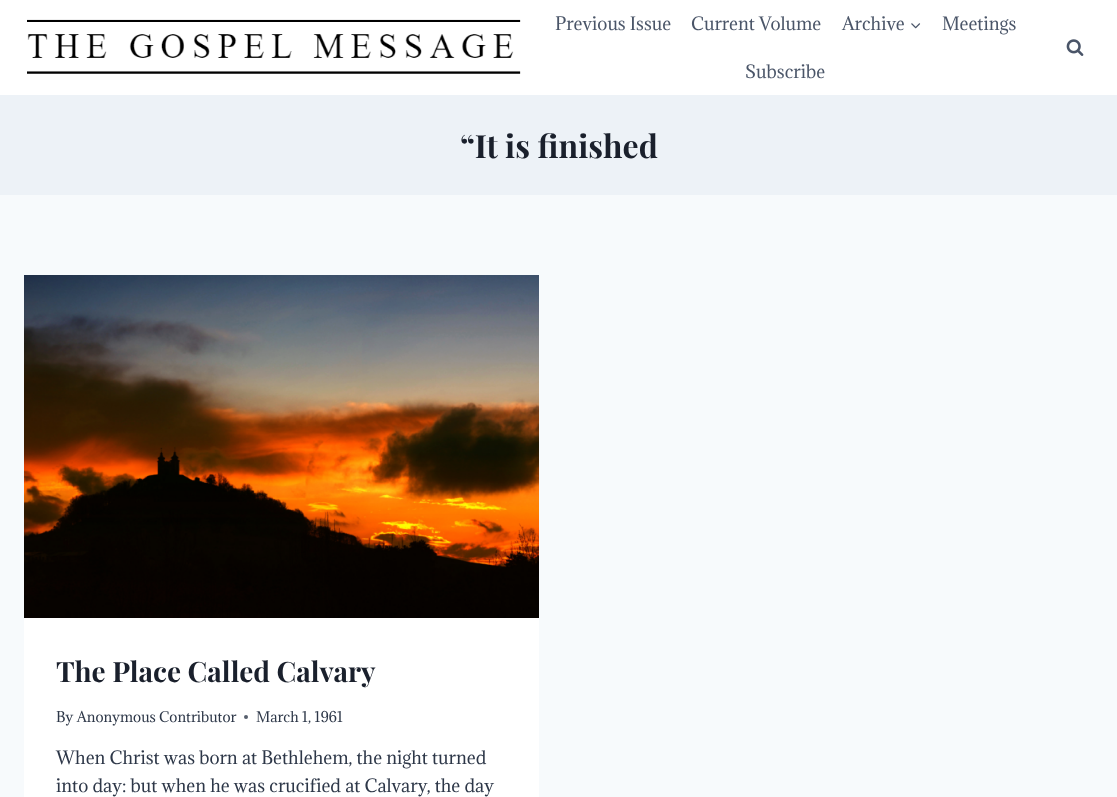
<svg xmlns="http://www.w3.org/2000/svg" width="1117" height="797">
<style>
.a{font:17px Adamina;fill:#4a5568}
.b{font:bold 32px Playfair Display;fill:#1a202c}
.c{font:bold 28px Playfair Display;fill:#1a202c}
.d{font:13.6px Adamina;fill:#2d3748}
.e{font:17px Adamina;fill:#2d3748}
</style>
<rect width="100%" height="100%" fill="#f7fafc"/>
<path fill="#fff" d="M0 0h1117v95H0z"/>
<image href="1.png" x="27" y="19" width="494" height="55"/>
<image href="2.png" x="911" y="23" width="10" height="6"/>
<image href="3.png" x="1066" y="39" width="18" height="17"/>
<path fill="#edf2f7" d="M0 95h1117v100H0z"/>
<path fill="#fff" d="M24 618h515v179H24z"/>
<image href="4.png" x="24" y="275" width="515" height="343"/>
<circle fill="#575f6d" cx="246" cy="717" r="2"/>
<text class="a" x="555" y="30">Previous Issue</text>
<text class="a" x="691" y="30">Current Volume</text>
<text class="a" x="842" y="30">Archive</text>
<text class="a" x="942" y="30">Meetings</text>
<text class="a" x="745" y="78">Subscribe</text>
<text class="b" x="460" y="158">“It is finished</text>
<text class="c" x="56" y="682">The Place Called Calvary</text>
<text class="d" x="56" y="722">By Anonymous Contributor</text>
<text class="d" x="256" y="722">March 1, 1961</text>
<text class="e" x="56" y="764">When Christ was born at Bethlehem, the night turned</text>
<text class="e" x="56" y="792">into day: but when he was crucified at Calvary, the day</text>
</svg>
